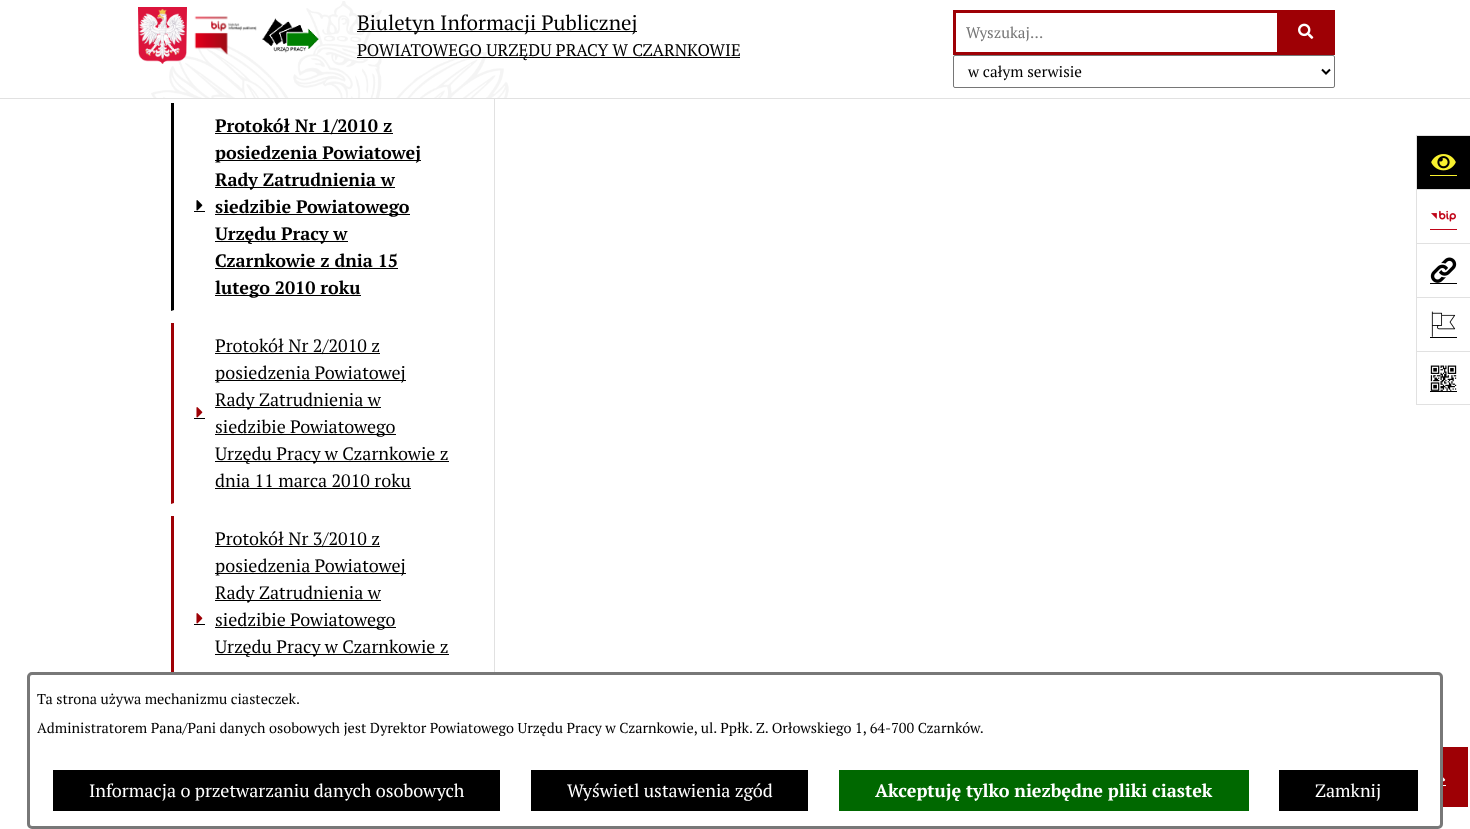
<svg xmlns="http://www.w3.org/2000/svg" width="1470" height="829">
<style>
.a{font:20.75px PT Serif;fill:#000}
.b{font:16.85px PT Serif;fill:#000}
.c{font:15.25px PT Serif;fill:#757575}
.d{font:15.25px PT Serif;fill:#000}
.e{font:bold 18px PT Serif;fill:#000}
.f{font:18px PT Serif;fill:#000}
.g{font:14.4px PT Serif;fill:#000}
.h{font:18px PT Serif;fill:#fff}
.i{font:bold 18px PT Serif;fill:#fff}
</style>
<rect width="100%" height="100%" fill="#fff"/>
<path fill="#e1e1e1" d="M0 98h1470v1H0z"/>
<image href="1.png" x="151" y="1" width="358" height="97"/>
<image href="2.png" x="138" y="7" width="49" height="57"/>
<image href="3.png" x="194" y="16" width="63" height="39"/>
<image href="4.png" x="262" y="18" width="57" height="35"/>
<path fill="#000" d="M357 31h280v1H357z"/>
<path fill="#000" d="M357 57h383v1H357z"/>
<path fill="none" stroke="#9e0005" stroke-width="3" d="M954.5 11.5h324v42H954.5z"/>
<path fill="#9e0005" d="M1280 10h55v45H1280z"/>
<image href="5.png" x="1298" y="23" width="16" height="16"/>
<rect fill="none" stroke="#767676" x="953.5" y="55.5" width="381" height="32" rx="1.5"/>
<path fill="none" stroke="#000" stroke-width="2" d="M1322 69.5l4 4l4-4"/>
<path fill="#000" d="M171 311v-208h3v207z"/>
<image href="6.png" x="196" y="200" width="7" height="11"/>
<path fill="#000" d="M194 211h11v1H194z"/>
<path fill="#000" d="M215 133h178v1H215z"/>
<path fill="#000" d="M215 160h206v1H215z"/>
<path fill="#000" d="M215 187h180v1H215z"/>
<path fill="#000" d="M215 214h195v1H215z"/>
<path fill="#000" d="M215 241h133v1H215z"/>
<path fill="#000" d="M215 268h183v1H215z"/>
<path fill="#000" d="M215 295h146v1H215z"/>
<path fill="#9e0005" d="M171 504v-181h3v180z"/>
<image href="7.png" x="196" y="407" width="7" height="11"/>
<path fill="#000" d="M194 418h11v1H194z"/>
<path fill="#000" d="M215 353h165v1H215z"/>
<path fill="#000" d="M215 380h191v1H215z"/>
<path fill="#000" d="M215 407h166v1H215z"/>
<path fill="#000" d="M215 434h181v1H215z"/>
<path fill="#000" d="M215 461h234v1H215z"/>
<path fill="#000" d="M215 488h196v1H215z"/>
<path fill="#9e0005" d="M171 724v-208h3v207z"/>
<image href="7.png" x="196" y="613" width="7" height="11"/>
<path fill="#000" d="M194 624h11v1H194z"/>
<path fill="#000" d="M215 546h165v1H215z"/>
<path fill="#000" d="M215 573h191v1H215z"/>
<path fill="#000" d="M215 600h166v1H215z"/>
<path fill="#000" d="M215 627h181v1H215z"/>
<path fill="#000" d="M215 654h234v1H215z"/>
<path fill="#e1e1e1" d="M494 99h1v573H494z"/>
<path fill="#000" d="M1417 136h53v53H1417z"/>
<path fill="#e1e1e1" d="M1416 135h54v1H1416z"/>
<path fill="#e1e1e1" d="M1416 135h1v54H1416z"/>
<image href="8.png" x="1431" y="154" width="25" height="17"/>
<path fill="#f8f12e" d="M1430 175h27v1H1430z"/>
<path fill="#e1e1e1" d="M1416 189h54v1H1416z"/>
<path fill="#e1e1e1" d="M1416 189h1v54H1416z"/>
<image href="9.png" x="1431" y="210" width="25" height="12"/>
<path fill="#c00418" d="M1430 229h27v1H1430z"/>
<path fill="#e1e1e1" d="M1416 243h54v1H1416z"/>
<path fill="#e1e1e1" d="M1416 243h1v54H1416z"/>
<image href="10.png" x="1430" y="257" width="27" height="26"/>
<path fill="#000" d="M1430 283h27v1H1430z"/>
<path fill="#e1e1e1" d="M1416 297h54v1H1416z"/>
<path fill="#e1e1e1" d="M1416 297h1v54H1416z"/>
<image href="11.png" x="1431" y="311" width="25" height="26"/>
<path fill="#000" d="M1430 337h27v1H1430z"/>
<path fill="#e1e1e1" d="M1416 351h54v1H1416z"/>
<path fill="#e1e1e1" d="M1416 404h54v1H1416z"/>
<path fill="#e1e1e1" d="M1416 351h1v54H1416z"/>
<image href="12.png" x="1430" y="365" width="27" height="26"/>
<path fill="#000" d="M1430 391h27v1H1430z"/>
<path fill="#9e0005" d="M1443 747h25v60H1443z"/>
<image href="13.png" x="1443" y="777" width="3" height="5"/>
<path fill="#fff" d="M1443 785h3v1H1443z"/>
<rect fill="#fff" stroke="#787878" stroke-width="3" x="28.5" y="673.5" width="1413" height="154" rx="3.5"/>
<path fill="#000" d="M53 770h447v41H53z"/>
<path fill="#000" d="M531 770h277v41H531z"/>
<path fill="#006800" d="M839 770h410v41H839z"/>
<path fill="#000" d="M1279 770h139v41H1279z"/>
<text class="a" x="357" y="30">Biuletyn Informacji Publicznej</text>
<text class="b" x="357" y="56">POWIATOWEGO URZĘDU PRACY W CZARNKOWIE</text>
<text class="c" x="966" y="38">Wyszukaj...</text>
<text class="d" x="968" y="77">w całym serwisie</text>
<text class="e" x="215" y="132">Protokół Nr 1/2010 z</text>
<text class="e" x="215" y="159">posiedzenia Powiatowej</text>
<text class="e" x="215" y="186">Rady Zatrudnienia w</text>
<text class="e" x="215" y="213">siedzibie Powiatowego</text>
<text class="e" x="215" y="240">Urzędu Pracy w</text>
<text class="e" x="215" y="267">Czarnkowie z dnia 15</text>
<text class="e" x="215" y="294">lutego 2010 roku</text>
<text class="f" x="215" y="352">Protokół Nr 2/2010 z</text>
<text class="f" x="215" y="379">posiedzenia Powiatowej</text>
<text class="f" x="215" y="406">Rady Zatrudnienia w</text>
<text class="f" x="215" y="433">siedzibie Powiatowego</text>
<text class="f" x="215" y="460">Urzędu Pracy w Czarnkowie z</text>
<text class="f" x="215" y="487">dnia 11 marca 2010 roku</text>
<text class="f" x="215" y="545">Protokół Nr 3/2010 z</text>
<text class="f" x="215" y="572">posiedzenia Powiatowej</text>
<text class="f" x="215" y="599">Rady Zatrudnienia w</text>
<text class="f" x="215" y="626">siedzibie Powiatowego</text>
<text class="f" x="215" y="653">Urzędu Pracy w Czarnkowie z</text>
<text class="g" x="37" y="704">Ta strona używa mechanizmu ciasteczek.</text>
<text class="g" x="37" y="733">Administratorem Pana/Pani danych osobowych jest Dyrektor Powiatowego Urzędu Pracy w Czarnkowie, ul. Ppłk. Z. Orłowskiego 1, 64-700 Czarnków.</text>
<text class="h" x="89" y="797">Informacja o przetwarzaniu danych osobowych</text>
<text class="h" x="567" y="797">Wyświetl ustawienia zgód</text>
<text class="i" x="875" y="797">Akceptuję tylko niezbędne pliki ciastek</text>
<text class="h" x="1315" y="797">Zamknij</text>
</svg>
